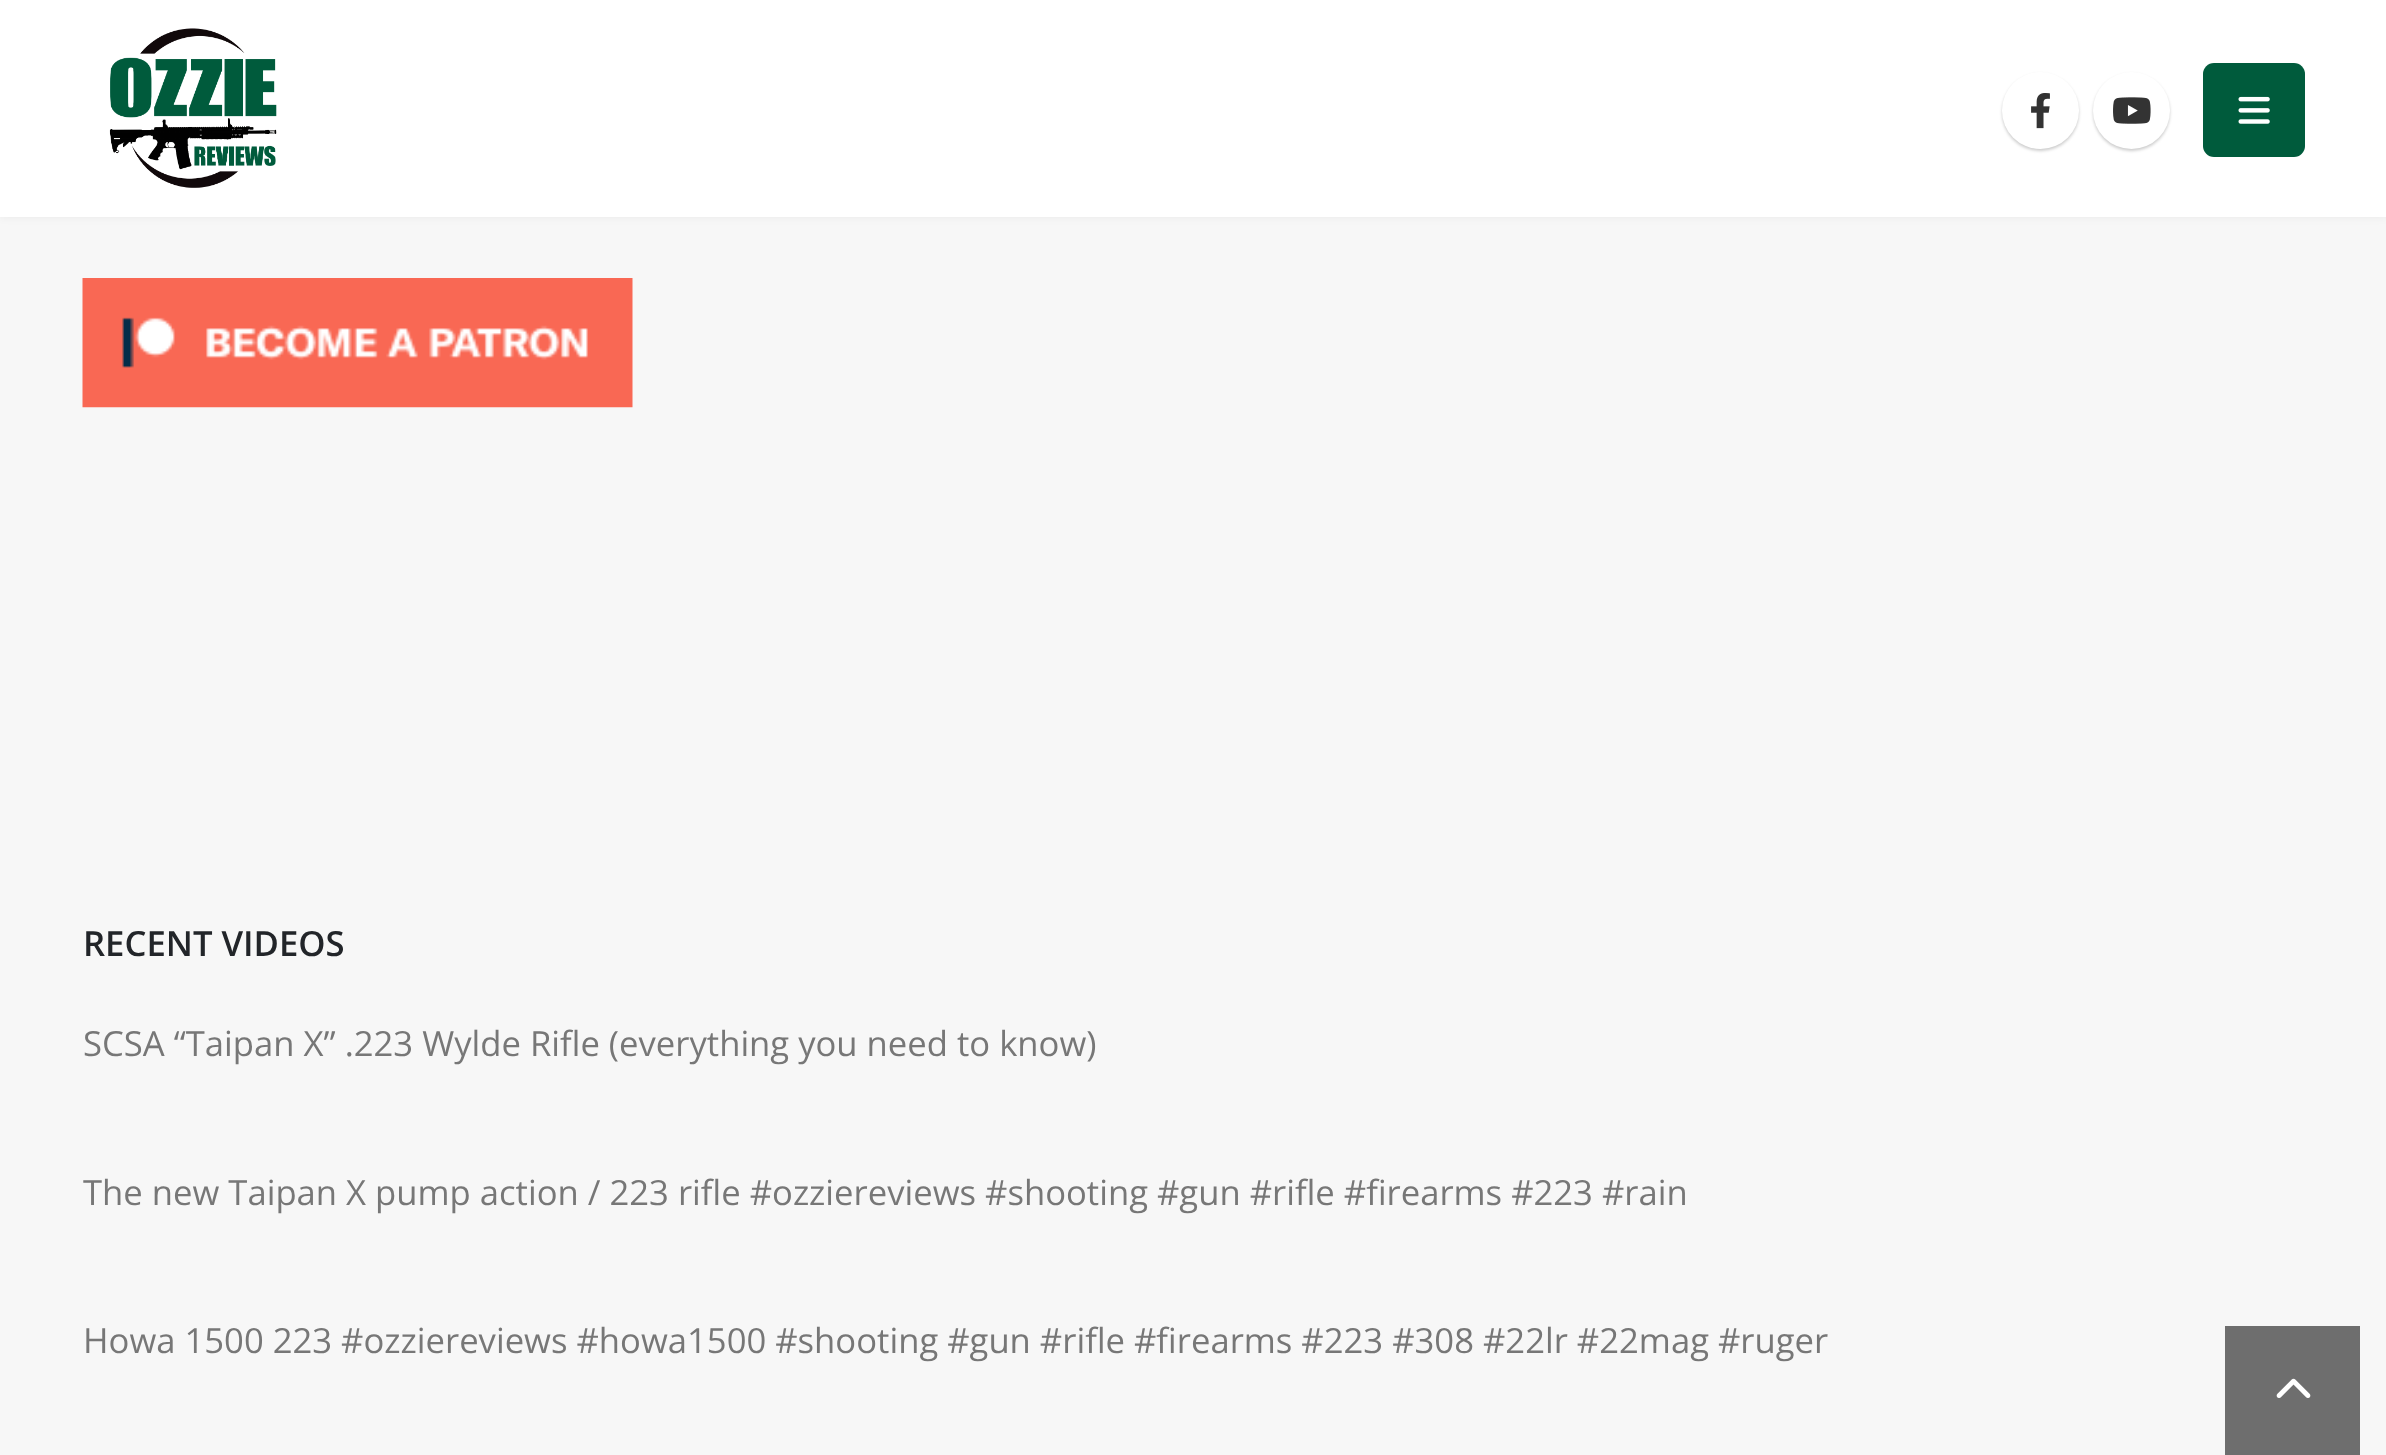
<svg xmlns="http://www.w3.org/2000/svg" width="2386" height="1455">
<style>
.a{font:600 34.65px Open Sans;fill:#222529}
.b{font:34.65px Open Sans;fill:#777}
</style>
<defs>
<clipPath id="clip1"><path d="M83 1012h2222v404H83z"/></clipPath>
</defs>
<rect width="100%" height="100%" fill="#f7f7f7"/>
<path fill="#0000000f" filter="blur(4px)" d="M0 0h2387v217H0z"/>
<path fill="#fff" d="M0 0h2386v217H0z"/>
<image href="1.png" x="109" y="28" width="168" height="160"/>
<rect fill="#00000033" filter="blur(1.5px)" x="2002" y="74" width="77" height="77" rx="38.5"/>
<circle fill="#fff" cx="2040.5" cy="110.5" r="38.5"/>
<image href="2.png" x="2031" y="93" width="19" height="36"/>
<rect fill="#00000033" filter="blur(1.5px)" x="2093" y="74" width="77" height="77" rx="38.5"/>
<circle fill="#fff" cx="2131.5" cy="110.5" r="38.5"/>
<image href="3.png" x="2113" y="97" width="38" height="27"/>
<rect fill="#005b3c" x="2203" y="63" width="102" height="94" rx="11"/>
<image href="4.png" x="2238" y="96" width="32" height="28"/>
<image href="5.png" x="82" y="278" width="551" height="130"/>
<path fill="#6e6e6e" d="M2225 1326h135v129H2225z"/>
<image href="6.png" x="2276" y="1378" width="35" height="20"/>
<text class="a" x="83" y="956">RECENT VIDEOS</text>
<text class="b" x="83" y="1056">SCSA “Taipan X” .223 Wylde Rifle (everything you need to know)</text>
<g clip-path="url(#clip1)">
<text class="b" x="83" y="1205">The new Taipan X pump action / 223 rifle #ozziereviews #shooting #gun #rifle #firearms #223 #rain</text>
</g>
<text class="b" x="83" y="1353">Howa 1500 223 #ozziereviews #howa1500 #shooting #gun #rifle #firearms #223 #308 #22lr #22mag #ruger</text>
</svg>
